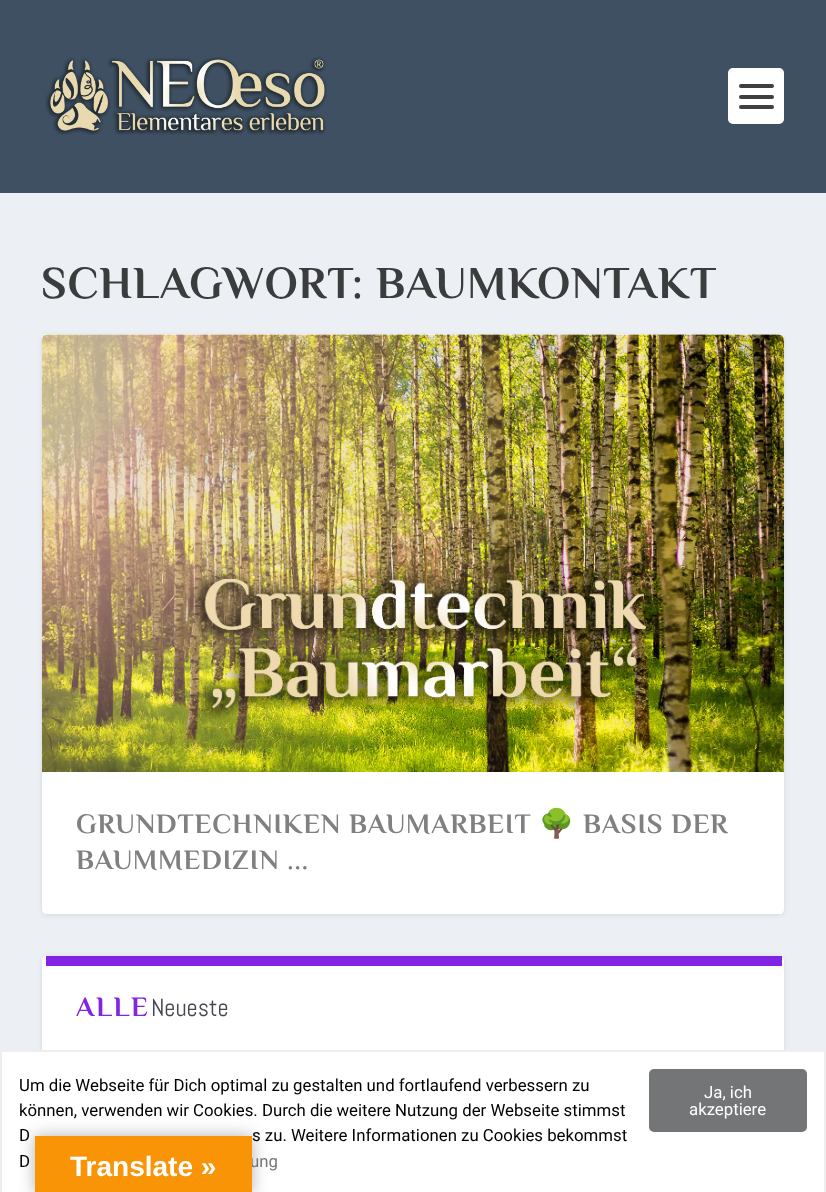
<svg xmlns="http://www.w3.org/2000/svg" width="826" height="1192">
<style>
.a{font:bold 45.5px Philosopher;letter-spacing:0.9px;fill:#3b3c3d}
.b{font:bold 28px Philosopher;letter-spacing:0.9px;fill:#808080}
.c{font:bold 28px Noto Color Emoji;letter-spacing:0.9px;fill:#808080}
.d{font:bold 28px Philosopher;letter-spacing:2px;fill:#8224e3}
.e{font:24.5px Abel;fill:#444651}
.f{font:16.8px Roboto;fill:#000}
.g{font:16.8px Roboto;fill:#737577}
.h{font:16.8px Roboto;fill:#fff}
.i{font:bold 28px Liberation Sans;fill:#fff}
</style>
<rect width="100%" height="100%" fill="#ecf0f5"/>
<path fill="#3e5062" d="M0 0h826v193H0z"/>
<image href="1.png" x="45" y="57" width="282" height="78"/>
<rect fill="#fff" x="728" y="68" width="56" height="56" rx="5"/>
<rect fill="#404040" x="739" y="84" width="35" height="4" rx="2"/>
<rect fill="#404040" x="739" y="95" width="35" height="4" rx="2"/>
<rect fill="#404040" x="739" y="105" width="35" height="4" rx="2"/>
<rect fill="#0000001a" filter="blur(2.5px)" x="42" y="336" width="742" height="579" rx="5"/>
<rect fill="#fff" x="42" y="334" width="742" height="580" rx="5"/>
<image href="2.png" x="42" y="334" width="742" height="580"/>
<path fill="#fff" d="M42 772h742v137c0 3-2 5-5 5h-732c-3 0-5-2-5-5z"/>
<rect fill="#0000001a" filter="blur(2.5px)" x="42" y="957" width="742" height="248" rx="5"/>
<rect fill="#fff" x="42" y="956" width="742" height="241" rx="5"/>
<path fill="#8224e3" d="M46 956h736v10H46z"/>
<path fill="#fff" stroke="#eee" stroke-width="2" d="M1 1051h824v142H1z"/>
<rect fill="#737577" x="649" y="1069" width="158" height="63" rx="5"/>
<path fill="#0000004d" filter="blur(8px)" d="M35 1136h217v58H35z"/>
<text class="a" x="41" y="298">SCHLAGWORT: BAUMKONTAKT</text>
<text class="b" x="76" y="833">GRUNDTECHNIKEN BAUMARBEIT</text>
<text class="c" x="539" y="833">🌳</text>
<text class="b" x="583" y="833">BASIS DER</text>
<text class="b" x="76" y="869">BAUMMEDIZIN ...</text>
<text class="d" x="76" y="1016">ALLE</text>
<text class="e" x="151" y="1016">Neueste</text>
<text class="f" x="19" y="1091">Um die Webseite für Dich optimal zu gestalten und fortlaufend verbessern zu</text>
<text class="f" x="19" y="1116">können, verwenden wir Cookies. Durch die weitere Nutzung der Webseite stimmst</text>
<text class="f" x="19" y="1141">D</text>
<text class="f" x="252" y="1141">s zu. Weitere Informationen zu Cookies bekommst</text>
<text class="f" x="19" y="1167">D</text>
<text class="g" x="250" y="1167">ung</text>
<text class="h" x="704" y="1098">Ja, ich</text>
<text class="h" x="689" y="1115">akzeptiere</text>
<path fill="#f89406" d="M35 1136h217v56H35z"/>
<text class="i" x="70" y="1176">Translate »</text>
</svg>
